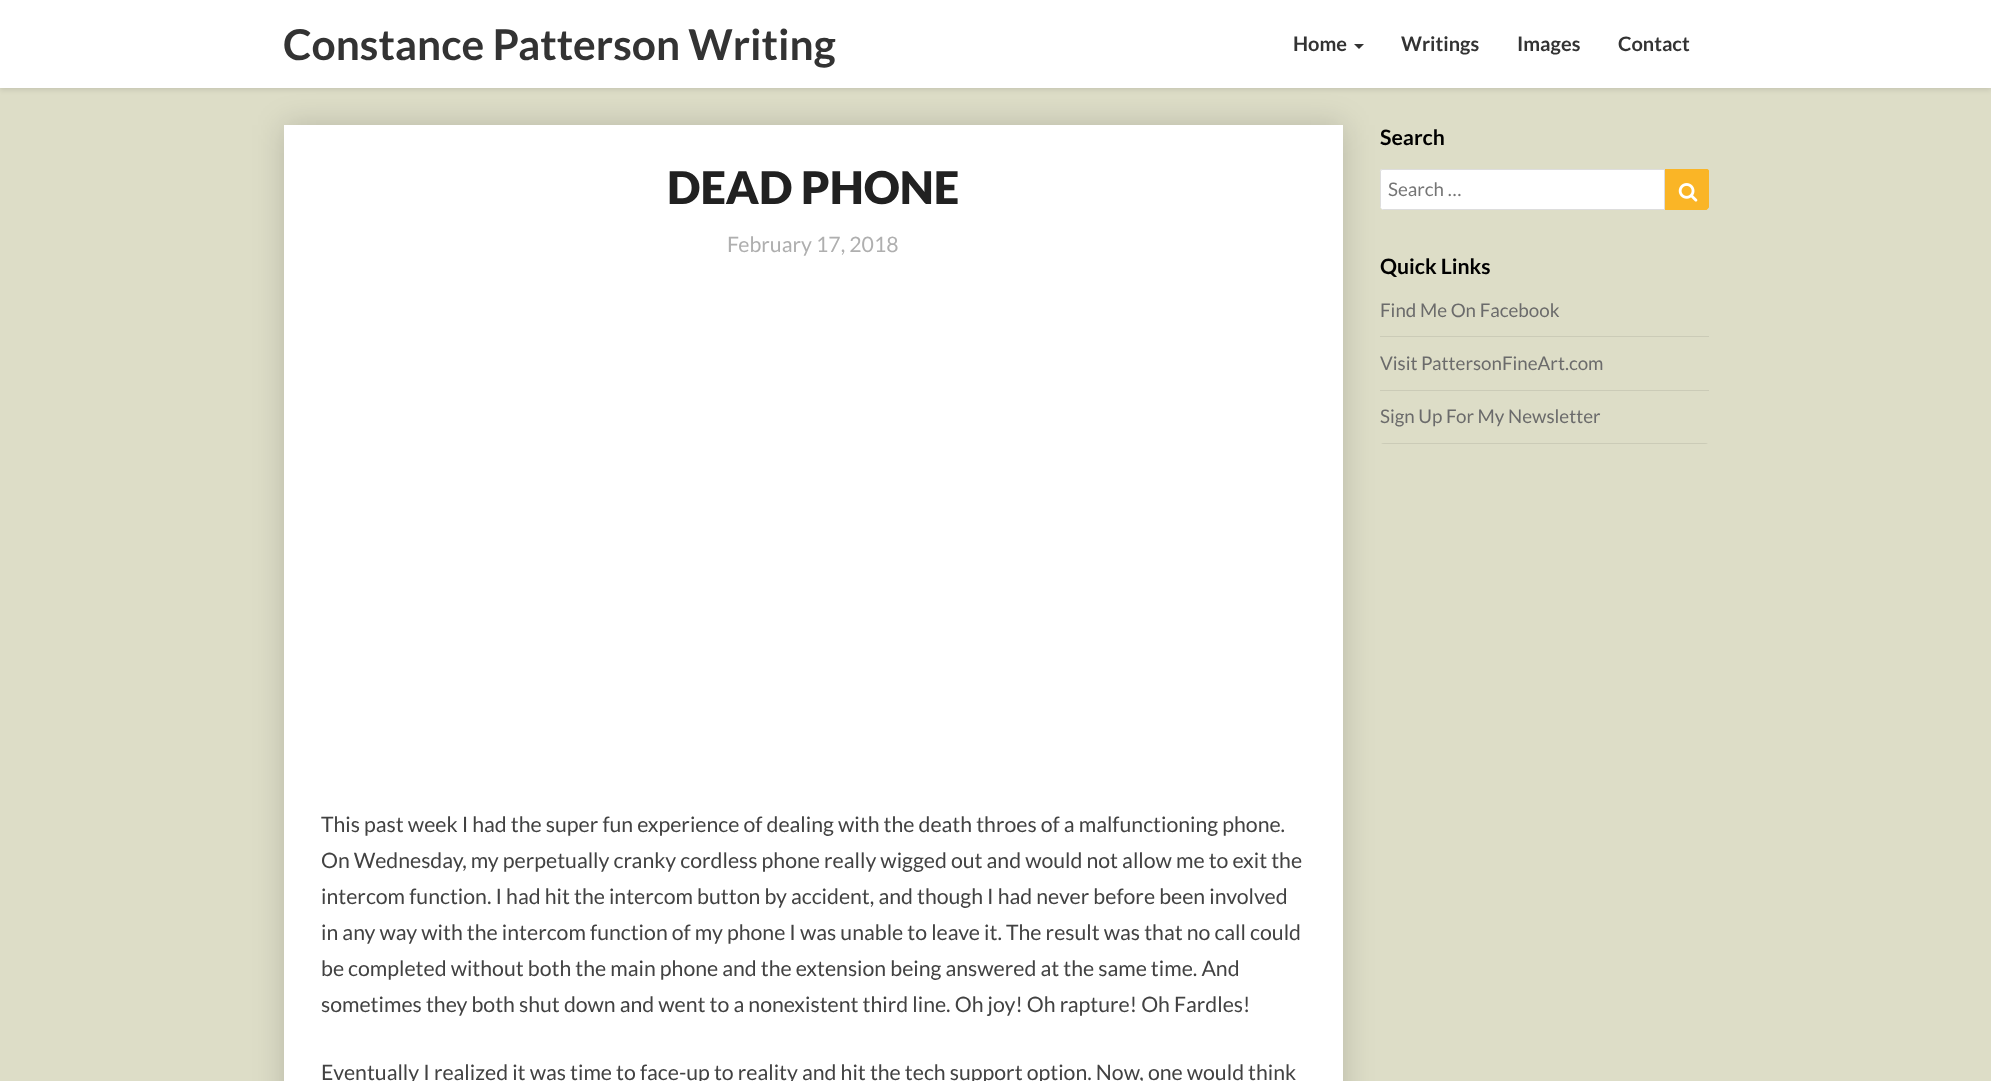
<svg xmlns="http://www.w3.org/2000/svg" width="1991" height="1081">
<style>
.a{font:bold 42.5px Lato;fill:#333}
.b{font:bold 20px Lato;fill:#333}
.c{font:900 45px Lato;fill:#212121}
.d{font:21.25px Lato;fill:#afafaf}
.e{font:21.25px Lato;fill:#424242}
.f{font:bold 21.25px Lato;fill:#000}
.g{font:18.75px Lato;fill:#757575}
.h{font:18.75px Lato;fill:#6b6b6b}
</style>
<defs>
<clipPath id="clip1"><rect x="1380" y="254" width="329" height="190" rx="4"/></clipPath>
</defs>
<rect width="100%" height="100%" fill="#ddddc7"/>
<path fill="#0000001a" filter="blur(2.5px)" d="M0 3h1991v87H0z"/>
<path fill="#0000002b" filter="blur(15.5px)" d="M284 125h1059v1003H284z"/>
<path fill="#fff" d="M0 0h1991v88H0z"/>
<path fill="#333" d="M1354 44h10l-5 5z"/>
<path fill="#fff" d="M284 125h1059v956H284z"/>
<path fill="#fff" d="M1382.5 169h282.5v41h-281c-2 0-4-2-4-4v-34.5c0-1.5 1-2.5 2.5-2.5z"/>
<path fill="#ddd" fill-rule="evenodd" d="M1382 169c-1 0-2 1-2 3v34c0 2 2 4 4 4h281v-41zm0 1l-1 1v37c0 0 1 1 1 1h282v-39z"/>
<path fill="#fab526" d="M1665 169h41.5c1.5 0 2.5 1 2.5 2.5v34.5c0 2-2 4-4 4h-40z"/>
<path fill="#fab526" fill-rule="evenodd" d="M1665 169v41h40c2 0 4-2 4-4v-34c0-2-1-3-3-3zm1 1v39h40c1 0 2-1 2-1v-36c0-1-1-2-2-2z"/>
<image href="1.png" x="1678" y="183" width="20" height="19"/>
<path fill="#cbcbb7" d="M1380 336h329v1H1380z"/>
<path fill="#cbcbb7" d="M1380 390h329v1H1380z"/>
<g clip-path="url(#clip1)">
<path fill="#cbcbb7" d="M1380 443h329v1H1380z"/>
</g>
<text class="a" x="283" y="60">Constance Patterson Writing</text>
<text class="b" x="1293" y="51">Home</text>
<text class="b" x="1401" y="51">Writings</text>
<text class="b" x="1517" y="51">Images</text>
<text class="b" x="1618" y="51">Contact</text>
<text class="c" x="667" y="204">DEAD PHONE</text>
<text class="d" x="727" y="252">February 17, 2018</text>
<text class="e" x="321" y="832">This past week I had the super fun experience of dealing with the death throes of a malfunctioning phone.</text>
<text class="e" x="321" y="868">On Wednesday, my perpetually cranky cordless phone really wigged out and would not allow me to exit the</text>
<text class="e" x="321" y="904">intercom function. I had hit the intercom button by accident, and though I had never before been involved</text>
<text class="e" x="321" y="940">in any way with the intercom function of my phone I was unable to leave it. The result was that no call could</text>
<text class="e" x="321" y="976">be completed without both the main phone and the extension being answered at the same time. And</text>
<text class="e" x="321" y="1012">sometimes they both shut down and went to a nonexistent third line. Oh joy! Oh rapture! Oh Fardles!</text>
<text class="e" x="321" y="1080">Eventually I realized it was time to face-up to reality and hit the tech support option. Now, one would think</text>
<text class="f" x="1380" y="145">Search</text>
<text class="g" x="1388" y="196">Search …</text>
<text class="f" x="1380" y="274">Quick Links</text>
<text class="h" x="1380" y="317">Find Me On Facebook</text>
<text class="h" x="1380" y="370">Visit PattersonFineArt.com</text>
<text class="h" x="1380" y="423">Sign Up For My Newsletter</text>
</svg>
